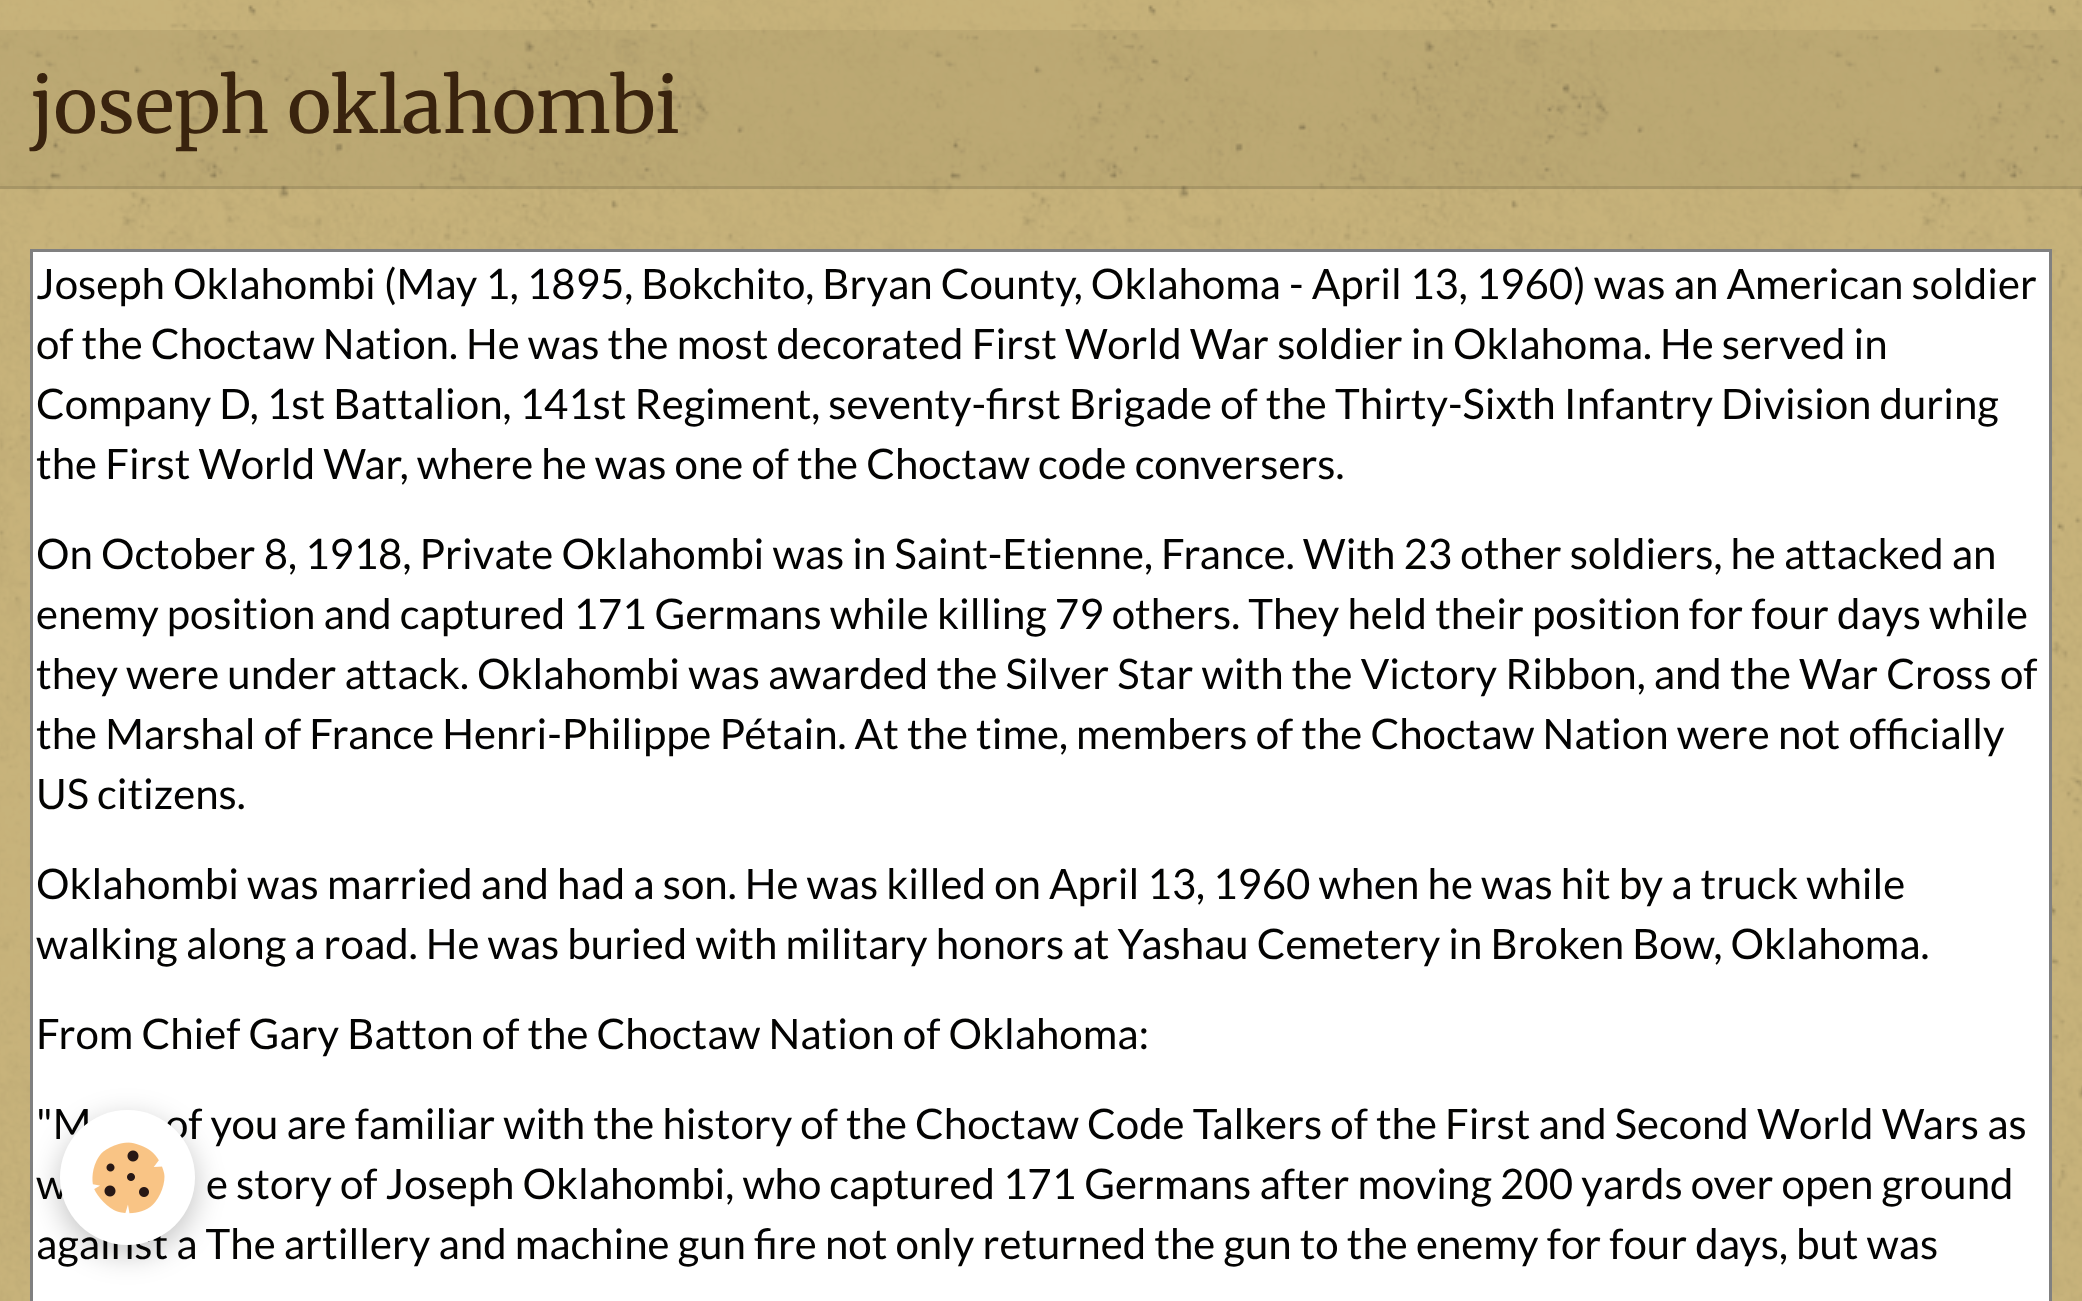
<svg xmlns="http://www.w3.org/2000/svg" width="2082" height="1301">
<style>
.a{font:75.5px Merriweather;fill:#39230e}
.b{font:42px Lato;fill:#030302}
</style>
<rect width="100%" height="100%" fill="#cbb67d"/>
<image href="1.png" x="0" y="0" width="2082" height="1301"/>
<path fill="#0000000d" d="M0 30h2082v159H0z"/>
<path fill="#0000001a" d="M0 186h2082v3H0z"/>
<path fill="#808080" d="M30 249h2022v3H30z"/>
<path fill="#808080" d="M2049 249h3v1052H2049z"/>
<path fill="#808080" d="M30 249h3v1052H30z"/>
<path fill="#fff" d="M33 252h2016v1049H33z"/>
<rect fill="#0000003d" filter="blur(15px)" x="60" y="1119" width="135" height="135" rx="67.5"/>
<text class="a" x="30" y="133">joseph oklahombi</text>
<text class="b" x="36" y="299">Joseph Oklahombi (May 1, 1895, Bokchito, Bryan County, Oklahoma - April 13, 1960) was an American soldier</text>
<text class="b" x="36" y="359">of the Choctaw Nation. He was the most decorated First World War soldier in Oklahoma. He served in</text>
<text class="b" x="36" y="419">Company D, 1st Battalion, 141st Regiment, seventy-first Brigade of the Thirty-Sixth Infantry Division during</text>
<text class="b" x="36" y="479">the First World War, where he was one of the Choctaw code conversers.</text>
<text class="b" x="36" y="569">On October 8, 1918, Private Oklahombi was in Saint-Etienne, France. With 23 other soldiers, he attacked an</text>
<text class="b" x="36" y="629">enemy position and captured 171 Germans while killing 79 others. They held their position for four days while</text>
<text class="b" x="36" y="689">they were under attack. Oklahombi was awarded the Silver Star with the Victory Ribbon, and the War Cross of</text>
<text class="b" x="36" y="749">the Marshal of France Henri-Philippe Pétain. At the time, members of the Choctaw Nation were not officially</text>
<text class="b" x="36" y="809">US citizens.</text>
<text class="b" x="36" y="899">Oklahombi was married and had a son. He was killed on April 13, 1960 when he was hit by a truck while</text>
<text class="b" x="36" y="959">walking along a road. He was buried with military honors at Yashau Cemetery in Broken Bow, Oklahoma.</text>
<text class="b" x="36" y="1049">From Chief Gary Batton of the Choctaw Nation of Oklahoma:</text>
<text class="b" x="36" y="1139">"M</text>
<text class="b" x="165" y="1139">of you are familiar with the history of the Choctaw Code Talkers of the First and Second World Wars as</text>
<text class="b" x="36" y="1199">w</text>
<text class="b" x="206" y="1199">e story of Joseph Oklahombi, who captured 171 Germans after moving 200 yards over open ground</text>
<text class="b" x="36" y="1259">against a The artillery and machine gun fire not only returned the gun to the enemy for four days, but was</text>
<circle fill="#fff" cx="127.5" cy="1177.5" r="67.5"/>
<image href="2.png" x="92" y="1142" width="73" height="72"/>
</svg>
